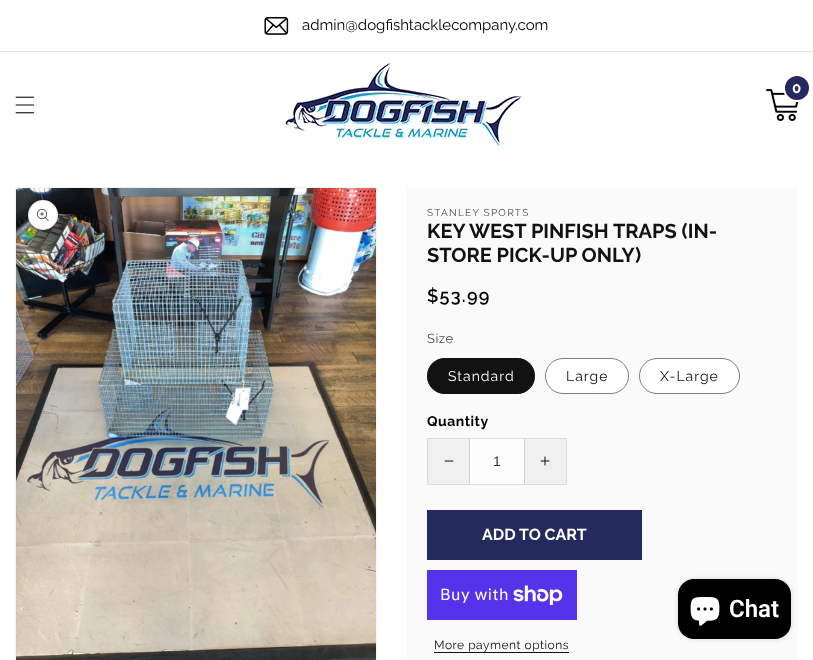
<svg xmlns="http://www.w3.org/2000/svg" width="813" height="660">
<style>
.a{font:15px Raleway;fill:#000}
.b{font:bold 15px Raleway;letter-spacing:0.5px;fill:#fff}
.c{font:10px Raleway;letter-spacing:1.25px;fill:#4c4c4c}
.d{font:bold 20px Raleway;fill:#121212}
.e{font:600 18px Raleway;letter-spacing:1.25px;fill:#000}
.f{font:13px Raleway;letter-spacing:0.5px;fill:#4c4c4c}
.g{font:14px Raleway;letter-spacing:1px;fill:#fff}
.h{font:14px Raleway;letter-spacing:1px;fill:#121212}
.i{font:bold 14px Raleway;letter-spacing:0.5px;fill:#000}
.j{font:14px Liberation Sans;fill:#333}
.k{font:bold 16px Raleway;fill:#fff}
.l{font:16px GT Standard;letter-spacing:0.5px;fill:#fff}
.m{font:12px Raleway;letter-spacing:0.5px;fill:#121212}
.n{font:600 24px Roboto;fill:#fff}
</style>
<rect width="100%" height="100%" fill="#fff"/>
<path fill="#e5e5e5" d="M0 51h813v1H0z"/>
<image href="1.png" x="264" y="17" width="25" height="18"/>
<image href="2.png" x="282" y="62" width="240" height="85"/>
<image href="3.png" x="766" y="89" width="33" height="32"/>
<circle fill="#242a5d" stroke="#fff" stroke-width="2" cx="797" cy="88" r="13"/>
<image href="4.png" x="15" y="96" width="20" height="18"/>
<path fill="none" stroke="#f3f3f3" d="M15.5 187.5h361v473H15.5z"/>
<image href="5.png" x="16" y="188" width="360" height="472"/>
<circle fill="#fff" cx="43" cy="215" r="15"/>
<circle fill="none" stroke="#1212121a" cx="43" cy="215" r="14.5"/>
<image href="6.png" x="37" y="209" width="12" height="12"/>
<path fill="#fafafa" d="M407 187h391v473H407z"/>
<rect fill="#121212" x="427" y="358" width="108" height="36" rx="18"/>
<rect fill="none" stroke="#1212128c" x="427.5" y="358.5" width="107" height="35" rx="17.5"/>
<rect fill="#fff" stroke="#7d7d7d" x="545.5" y="358.5" width="83" height="35" rx="17.5"/>
<rect fill="#fff" stroke="#7d7d7d" x="639.5" y="358.5" width="100" height="35" rx="17.5"/>
<path fill="#f0f0f0" stroke="#dcdcdc" d="M427.5 438.5h139v46H427.5z"/>
<image href="7.png" x="444" y="460" width="10" height="2"/>
<path fill="#fdfdfd" d="M470 439h54v45H470z"/>
<path fill="#d1d1d1" d="M524 439h1v45H524z"/>
<path fill="#d1d1d1" d="M469 439h1v45H469z"/>
<image href="8.png" x="540" y="456" width="10" height="10"/>
<path fill="#242a5d" d="M427 510h215v50H427z"/>
<path fill="#5433eb" d="M427 570h150v50H427z"/>
<image href="9.png" x="513" y="585" width="50" height="20"/>
<path fill="#121212" d="M434 652h135v1H434z"/>
<rect fill="#00000026" filter="blur(2.5px)" x="678" y="579" width="113" height="60" rx="16"/>
<rect fill="#000" x="678" y="579" width="113" height="60" rx="16"/>
<image href="10.png" x="690" y="597" width="30" height="29"/>
<text class="a" x="302" y="30">admin@dogfishtacklecompany.com</text>
<text class="b" x="792" y="93">0</text>
<text class="c" x="427" y="216">STANLEY SPORTS</text>
<text class="d" x="427" y="238">KEY WEST PINFISH TRAPS (IN-</text>
<text class="d" x="427" y="262">STORE PICK-UP ONLY)</text>
<text class="e" x="427" y="302">$53.99</text>
<text class="f" x="427" y="343">Size</text>
<text class="g" x="448" y="381">Standard</text>
<text class="h" x="566" y="381">Large</text>
<text class="h" x="660" y="381">X-Large</text>
<text class="i" x="427" y="426">Quantity</text>
<text class="j" x="493" y="466">1</text>
<text class="k" x="482" y="540">ADD TO CART</text>
<text class="l" x="440" y="600">Buy with</text>
<text class="m" x="434" y="649">More payment options</text>
<text class="n" x="729" y="617">Chat</text>
</svg>
